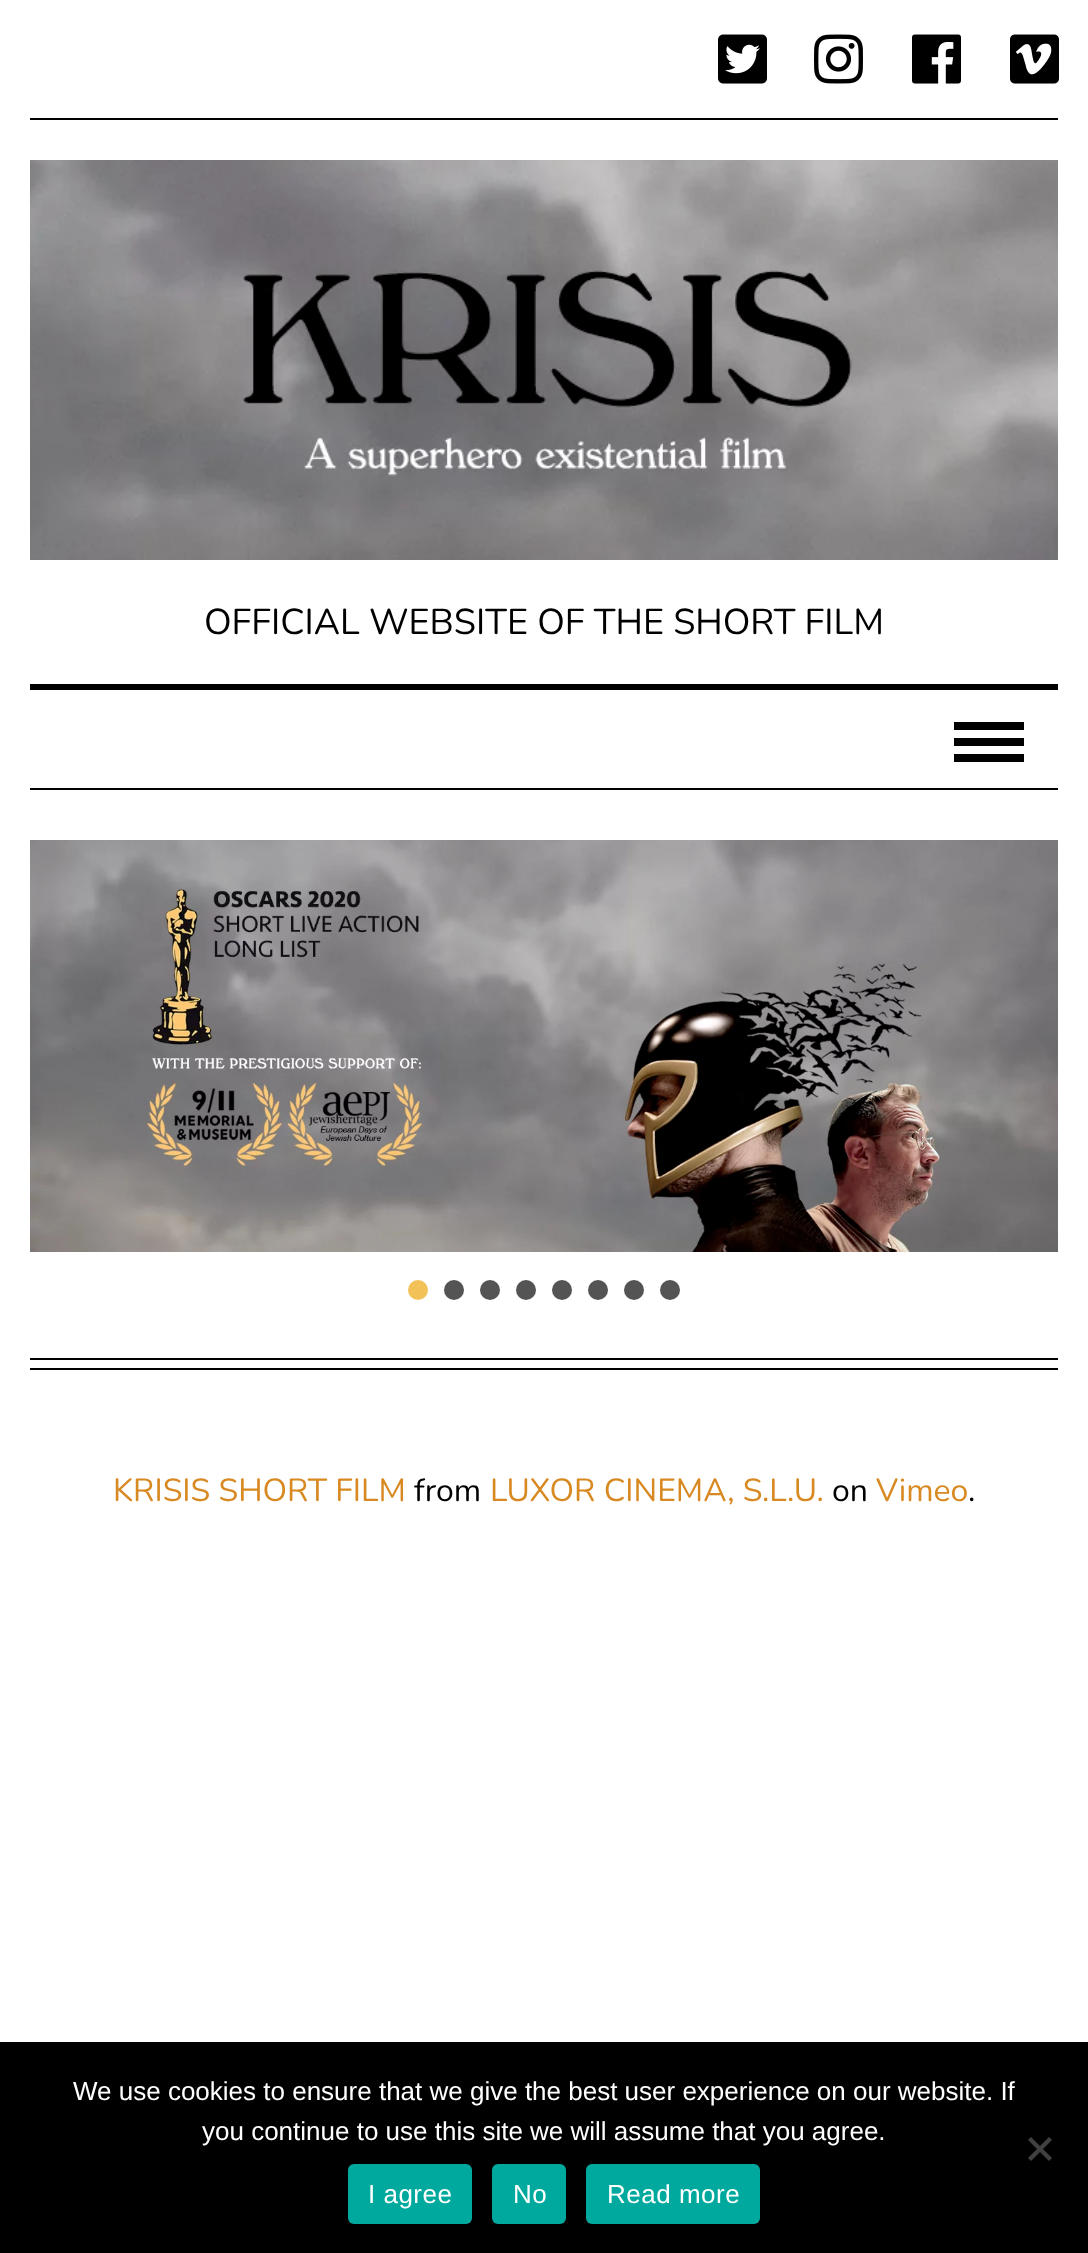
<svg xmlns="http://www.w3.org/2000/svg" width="1088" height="2253">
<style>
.a{font:36px Nunito;fill:#000}
.b{font:32px Nunito;fill:#d88922}
.c{font:32px Nunito;fill:#000}
.d{font:26px Liberation Sans;fill:#fff}
.e{font:26px Liberation Sans;letter-spacing:0.5px;fill:#fff}
</style>
<rect width="100%" height="100%" fill="#fff"/>
<path fill="#000" d="M30 118h1028v2H30z"/>
<image href="1.png" x="718" y="34" width="49" height="50"/>
<image href="2.png" x="814" y="34" width="49" height="50"/>
<image href="3.png" x="912" y="34" width="49" height="50"/>
<image href="4.png" x="1010" y="34" width="49" height="50"/>
<path fill="#000" d="M30 684h1028v6H30z"/>
<image href="5.png" x="30" y="160" width="1028" height="400"/>
<path fill="#000" d="M954 722h70v8H954z"/>
<path fill="#000" d="M954 738h70v8H954z"/>
<path fill="#000" d="M954 754h70v8H954z"/>
<path fill="#000" d="M30 788h1028v2H30z"/>
<image href="6.png" x="30" y="840" width="1028" height="412"/>
<circle fill="#f2c158" cx="418" cy="1290" r="10"/>
<circle fill="#545454" cx="454" cy="1290" r="10"/>
<circle fill="#545454" cx="490" cy="1290" r="10"/>
<circle fill="#545454" cx="526" cy="1290" r="10"/>
<circle fill="#545454" cx="562" cy="1290" r="10"/>
<circle fill="#545454" cx="598" cy="1290" r="10"/>
<circle fill="#545454" cx="634" cy="1290" r="10"/>
<circle fill="#545454" cx="670" cy="1290" r="10"/>
<path fill="#000" d="M30 1358h1028v2H30z"/>
<path fill="#000" d="M30 1368h1028v2H30z"/>
<path fill="#000" d="M0 2042h1088v211H0z"/>
<path fill="#404040" d="M1049 2137l3 3l-21 21l-3-3z"/>
<path fill="#404040" d="M1028 2140l3-3l21 21l-3 3z"/>
<rect fill="#00a99d" x="348" y="2164" width="124" height="60" rx="6"/>
<rect fill="#00a99d" x="492" y="2164" width="74" height="60" rx="6"/>
<rect fill="#00a99d" x="586" y="2164" width="174" height="60" rx="6"/>
<text class="a" x="204" y="634">OFFICIAL WEBSITE OF THE SHORT FILM</text>
<text class="b" x="113" y="1501">KRISIS SHORT FILM</text>
<text class="c" x="414" y="1501">from</text>
<text class="b" x="490" y="1501">LUXOR CINEMA, S.L.U.</text>
<text class="c" x="832" y="1501">on</text>
<text class="b" x="876" y="1501">Vimeo</text>
<text class="c" x="968" y="1501">.</text>
<text class="d" x="73" y="2100">We use cookies to ensure that we give the best user experience on our website. If</text>
<text class="d" x="202" y="2140">you continue to use this site we will assume that you agree.</text>
<text class="e" x="368" y="2203">I agree</text>
<text class="e" x="513" y="2203">No</text>
<text class="e" x="607" y="2203">Read more</text>
</svg>
